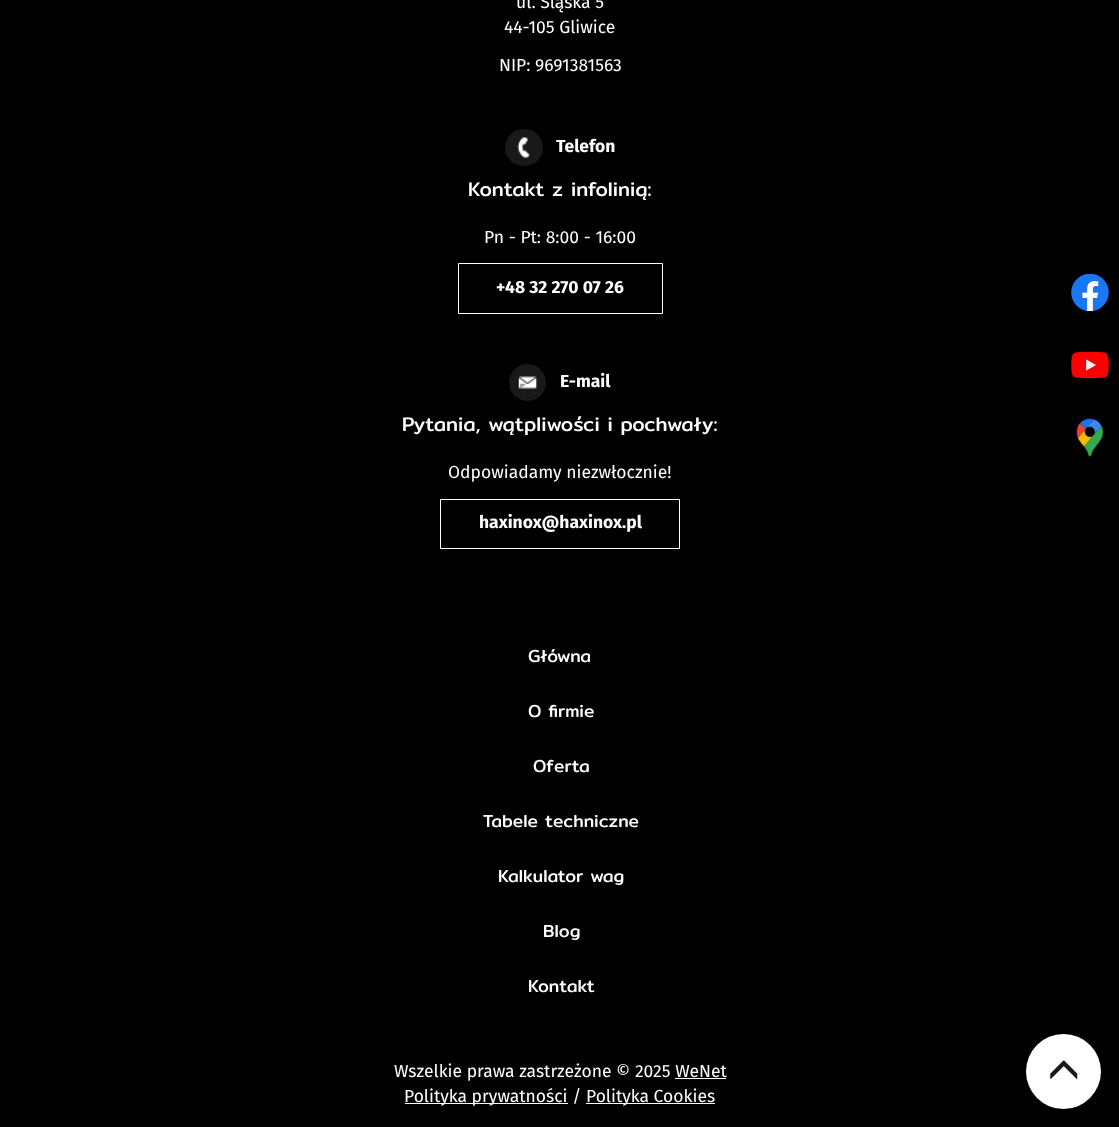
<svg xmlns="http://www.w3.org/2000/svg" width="1119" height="1127">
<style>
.a{font:17.5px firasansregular;fill:#fff}
.b{font:bold 17.5px Fira Sans;fill:#fff}
.c{font:20px Mitr;fill:#fff}
.d{font:17.5px Mitr;fill:#fff}
</style>
<rect width="100%" height="100%" fill="#000"/>
<rect fill="#1a1919" x="505" y="129" width="38" height="37" rx="18.5"/>
<image href="1.png" x="517" y="137" width="13" height="21"/>
<path fill="none" stroke="#fff" d="M458.5 263.5h204v50H458.5z"/>
<circle fill="#1a1919" cx="527.5" cy="382.5" r="18.5"/>
<image href="2.png" x="518" y="376" width="19" height="13"/>
<path fill="none" stroke="#fff" d="M440.5 499.5h239v49H440.5z"/>
<path fill="#fff" d="M675 1078h51v1H675z"/>
<path fill="#fff" d="M405 1103h163v1H405z"/>
<path fill="#fff" d="M586 1103h129v1H586z"/>
<image href="3.png" x="1071" y="274" width="38" height="37"/>
<image href="4.png" x="1071" y="351" width="38" height="28"/>
<image href="5.png" x="1076" y="418" width="28" height="39"/>
<circle fill="#fff" cx="1063.5" cy="1071.5" r="37.5"/>
<image href="6.png" x="1050" y="1060" width="28" height="19"/>
<text class="a" x="516" y="8">ul. Śląska 5</text>
<text class="a" x="504" y="33">44-105 Gliwice</text>
<text class="a" x="499" y="71">NIP: 9691381563</text>
<text class="b" x="556" y="152">Telefon</text>
<text class="c" x="468" y="196">Kontakt z infolinią:</text>
<text class="a" x="484" y="243">Pn - Pt: 8:00 - 16:00</text>
<text class="b" x="496" y="293">+48 32 270 07 26</text>
<text class="b" x="560" y="387">E-mail</text>
<text class="c" x="402" y="431">Pytania, wątpliwości i pochwały:</text>
<text class="a" x="448" y="478">Odpowiadamy niezwłocznie!</text>
<text class="b" x="479" y="528">haxinox@haxinox.pl</text>
<text class="d" x="528" y="662">Główna</text>
<text class="d" x="528" y="717">O firmie</text>
<text class="d" x="533" y="772">Oferta</text>
<text class="d" x="483" y="827">Tabele techniczne</text>
<text class="d" x="498" y="882">Kalkulator wag</text>
<text class="d" x="543" y="937">Blog</text>
<text class="d" x="528" y="992">Kontakt</text>
<text class="a" x="394" y="1077">Wszelkie prawa zastrzeżone © 2025 WeNet</text>
<text class="a" x="404" y="1102">Polityka prywatności /</text>
<text class="a" x="586" y="1102">Polityka Cookies</text>
</svg>
